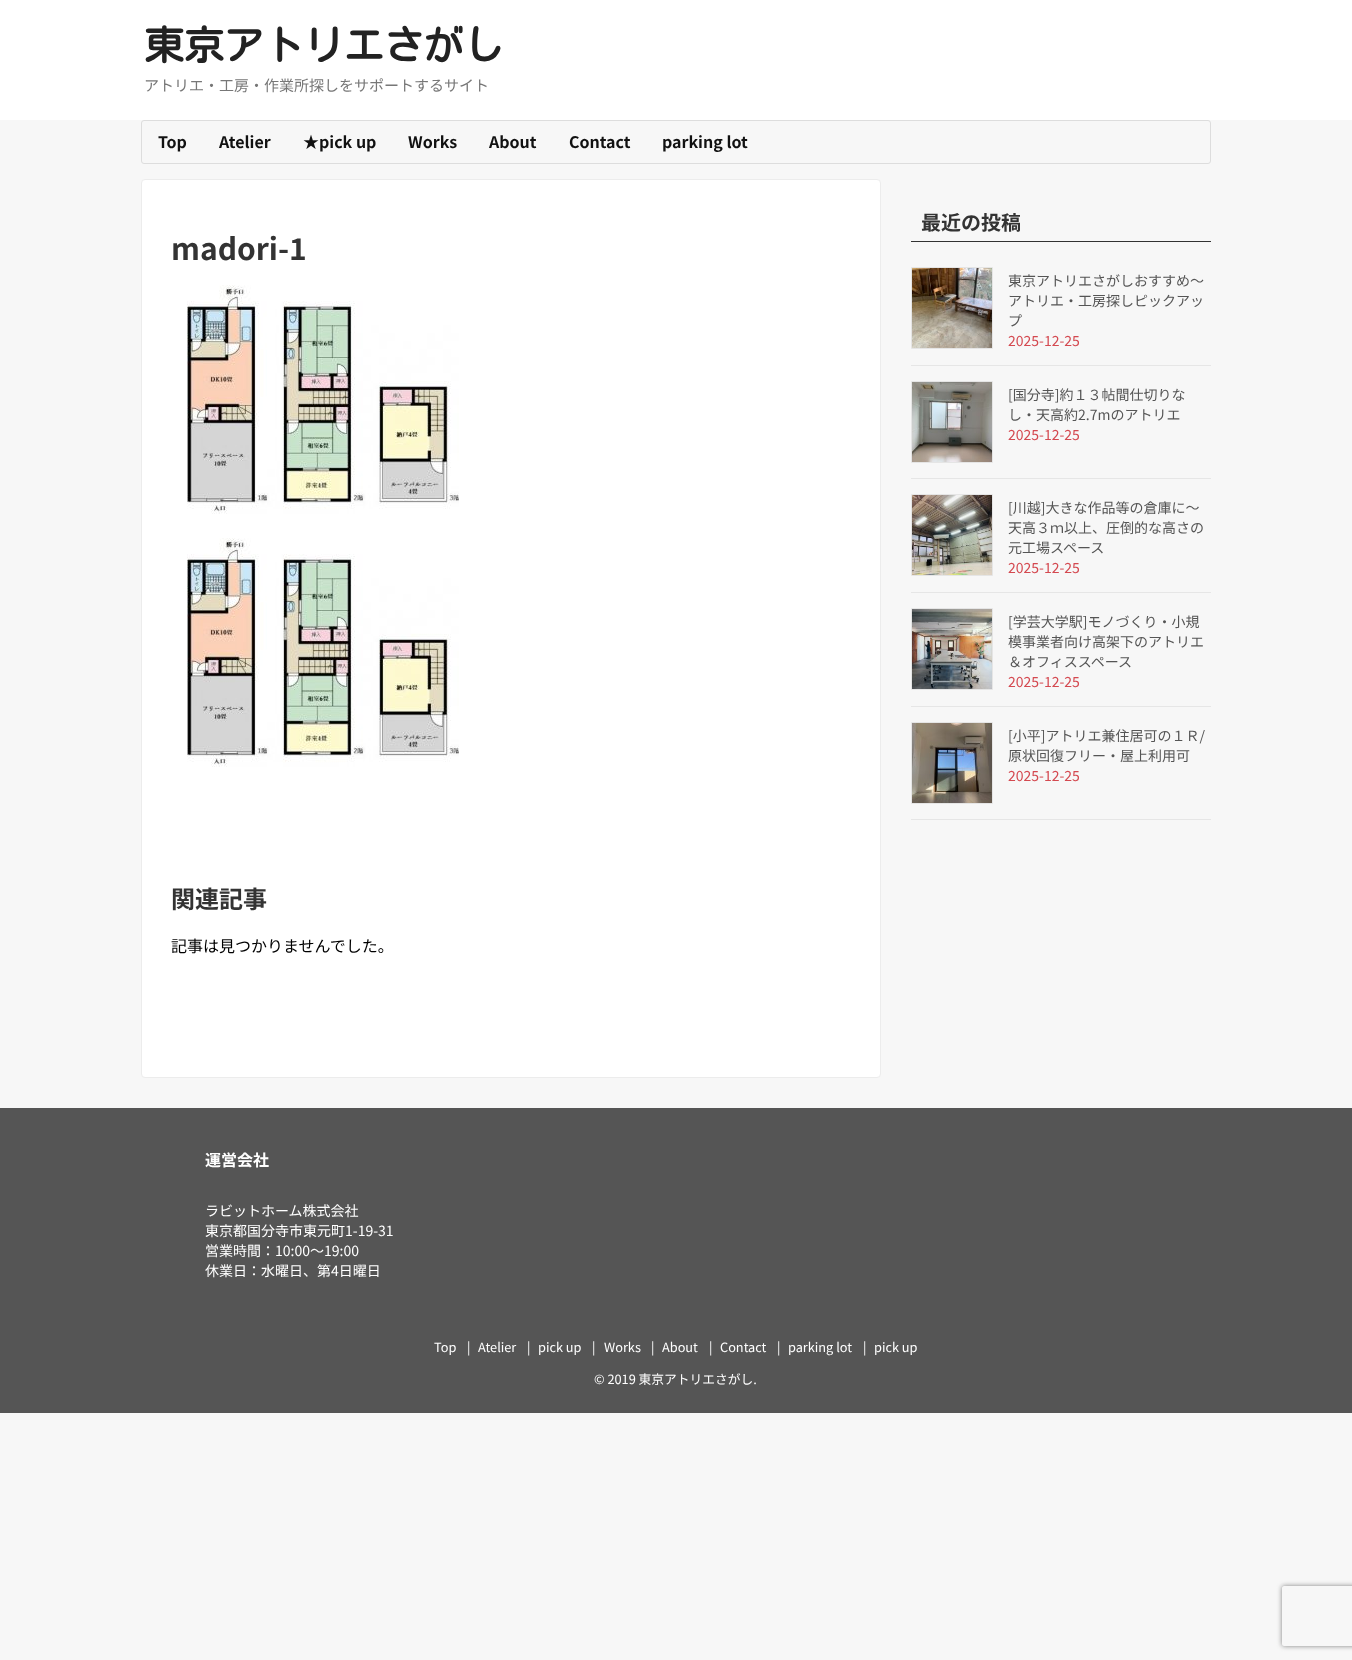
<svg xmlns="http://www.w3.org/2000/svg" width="1352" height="1660">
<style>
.a{font:bold 40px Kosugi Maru;fill:#222}
.b{font:15px Noto Sans JP;fill:#777}
.c{font:bold 16px Noto Sans JP;fill:#111}
.d{font:bold 30px Noto Sans JP;fill:#333}
.e{font:bold 24px Noto Sans JP;fill:#333}
.f{font:16px Noto Sans JP;fill:#000}
.g{font:bold 20px Noto Sans JP;fill:#333}
.h{font:14px Noto Sans JP;fill:#555}
.i{font:14px Noto Sans JP;fill:#d44950}
.j{font:bold 16px Noto Sans JP;fill:#fff}
.k{font:14px Noto Sans JP;fill:#fff}
.l{font:12.75px Noto Sans JP;fill:#fff}
</style>
<defs>
<clipPath id="clip1"><path d="M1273 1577h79v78h-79zm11 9h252c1 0 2 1 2 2v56c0 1-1 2-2 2h-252c-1 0-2-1-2-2v-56c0-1 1-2 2-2z" clip-rule="evenodd"/></clipPath>
</defs>
<rect width="100%" height="100%" fill="#f7f7f7"/>
<path fill="#fff" d="M0 0h1352v120H0z"/>
<rect fill="none" stroke="#ddd" x="141.5" y="120.5" width="1069" height="43" rx="2.5"/>
<rect fill="#fff" stroke="#ececec" x="141.5" y="179.5" width="739" height="898" rx="3.5"/>
<image href="1.png" x="187" y="285" width="272" height="229"/>
<image href="1.png" x="187" y="538" width="272" height="229"/>
<path fill="#333" d="M911 241h300v1H911z"/>
<path fill="#e6e6e6" d="M911 365h300v1H911z"/>
<path fill="none" stroke="#e5e5e5" d="M911.5 267.5h81v81H911.5z"/>
<image href="2.png" x="912" y="268" width="80" height="80"/>
<path fill="#e6e6e6" d="M911 478h300v1H911z"/>
<path fill="none" stroke="#e5e5e5" d="M911.5 381.5h81v81H911.5z"/>
<image href="3.png" x="912" y="382" width="80" height="80"/>
<path fill="#e6e6e6" d="M911 592h300v1H911z"/>
<path fill="none" stroke="#e5e5e5" d="M911.5 494.5h81v81H911.5z"/>
<image href="4.png" x="912" y="495" width="80" height="80"/>
<path fill="#e6e6e6" d="M911 706h300v1H911z"/>
<path fill="none" stroke="#e5e5e5" d="M911.5 608.5h81v81H911.5z"/>
<image href="5.png" x="912" y="609" width="80" height="80"/>
<path fill="#e6e6e6" d="M911 819h300v1H911z"/>
<path fill="none" stroke="#e5e5e5" d="M911.5 722.5h81v81H911.5z"/>
<image href="6.png" x="912" y="723" width="80" height="80"/>
<path fill="#555" d="M0 1108h1352v305H0z"/>
<g clip-path="url(#clip1)">
<rect fill="#808080" filter="blur(2.5px)" x="1282" y="1586" width="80" height="60" rx="2"/>
</g>
<text class="a" x="144" y="60">東京アトリエさがし</text>
<text class="b" x="144" y="91">アトリエ・工房・作業所探しをサポートするサイト</text>
<text class="c" x="158" y="148">Top</text>
<text class="c" x="219" y="148">Atelier</text>
<text class="c" x="303" y="148">★pick up</text>
<text class="c" x="408" y="148">Works</text>
<text class="c" x="489" y="148">About</text>
<text class="c" x="569" y="148">Contact</text>
<text class="c" x="662" y="148">parking lot</text>
<text class="d" x="171" y="260">madori-1</text>
<text class="e" x="171" y="908">関連記事</text>
<text class="f" x="171" y="952">記事は見つかりませんでした。</text>
<text class="g" x="921" y="230">最近の投稿</text>
<text class="h" x="1008" y="286">東京アトリエさがしおすすめ～</text>
<text class="h" x="1008" y="306">アトリエ・工房探しピックアッ</text>
<text class="h" x="1008" y="326">プ</text>
<text class="i" x="1008" y="346">2025-12-25</text>
<text class="h" x="1008" y="400">[国分寺]約１３帖間仕切りな</text>
<text class="h" x="1008" y="420">し・天高約2.7mのアトリエ</text>
<text class="i" x="1008" y="440">2025-12-25</text>
<text class="h" x="1008" y="513">[川越]大きな作品等の倉庫に～</text>
<text class="h" x="1008" y="533">天高３ｍ以上、圧倒的な高さの</text>
<text class="h" x="1008" y="553">元工場スペース</text>
<text class="i" x="1008" y="573">2025-12-25</text>
<text class="h" x="1008" y="627">[学芸大学駅]モノづくり・小規</text>
<text class="h" x="1008" y="647">模事業者向け高架下のアトリエ</text>
<text class="h" x="1008" y="667">＆オフィススペース</text>
<text class="i" x="1008" y="687">2025-12-25</text>
<text class="h" x="1008" y="741">[小平]アトリエ兼住居可の１Ｒ/</text>
<text class="h" x="1008" y="761">原状回復フリー・屋上利用可</text>
<text class="i" x="1008" y="781">2025-12-25</text>
<text class="j" x="205" y="1166">運営会社</text>
<text class="k" x="205" y="1216">ラビットホーム株式会社</text>
<text class="k" x="205" y="1236">東京都国分寺市東元町1-19-31</text>
<text class="k" x="205" y="1256">営業時間：10:00～19:00</text>
<text class="k" x="205" y="1276">休業日：水曜日、第4日曜日</text>
<text class="l" x="434" y="1352">Top</text>
<text class="l" x="467" y="1352">|</text>
<text class="l" x="478" y="1352">Atelier</text>
<text class="l" x="527" y="1352">|</text>
<text class="l" x="538" y="1352">pick up</text>
<text class="l" x="592" y="1352">|</text>
<text class="l" x="604" y="1352">Works</text>
<text class="l" x="651" y="1352">|</text>
<text class="l" x="662" y="1352">About</text>
<text class="l" x="709" y="1352">|</text>
<text class="l" x="720" y="1352">Contact</text>
<text class="l" x="777" y="1352">|</text>
<text class="l" x="788" y="1352">parking lot</text>
<text class="l" x="863" y="1352">|</text>
<text class="l" x="874" y="1352">pick up</text>
<text class="l" x="594" y="1384">© 2019 東京アトリエさがし.</text>
</svg>
